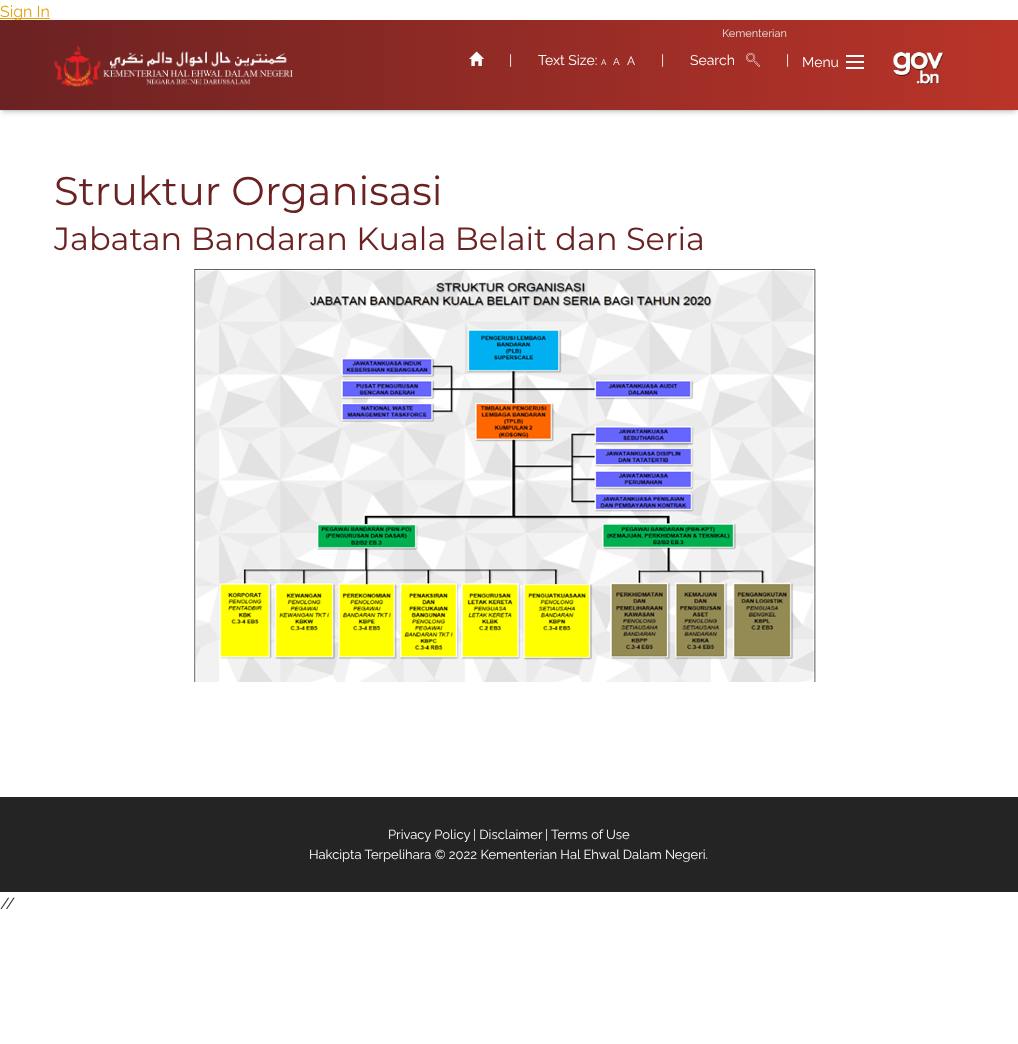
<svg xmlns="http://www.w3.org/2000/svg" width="1018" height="1044">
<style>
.a{font:16px Raleway;fill:#e2a312}
.b{font:11px Raleway;fill:#e5e5e5}
.c{font:14px Raleway;fill:#fff}
.d{font:8px Raleway;fill:#fff}
.e{font:10px Raleway;fill:#fff}
.f{font:12px Raleway;fill:#fff}
.g{font:40px Montserrat;fill:#6b2222}
.h{font:32px Montserrat;fill:#6b2222}
.i{font:13px Raleway;fill:#fff}
.j{font:16px Raleway;fill:#312928}
</style>
<defs>
<linearGradient id="g1" gradientUnits="userSpaceOnUse" x1="0" y1="65" x2="1018" y2="65"><stop offset="0" stop-color="#6b2222"/><stop offset="1" stop-color="#ba3429"/></linearGradient>
</defs>
<rect width="100%" height="100%" fill="#fff"/>
<path fill="#e2a312" d="M0 18h50v1H0z"/>
<path fill="#0000000d" filter="blur(0.5px)" d="M1 23h1016v88H1z"/>
<path fill="#00000038" filter="blur(2.5px)" d="M2 26h1014v86H2z"/>
<image href="5.png" x="194" y="269" width="622" height="413"/>
<path fill="#242424" d="M0 797h1018v95H0z"/>
<text class="a" x="0" y="17">Sign In</text>
<path fill="url(#g1)" d="M0 20h1018v90H0z"/>
<text class="b" x="722" y="37">Kementerian</text>
<image href="1.png" x="54" y="45" width="239" height="43"/>
<image href="2.png" x="469" y="51" width="15" height="15"/>
<text class="c" x="509" y="65">|</text>
<text class="c" x="538" y="65">Text Size:</text>
<text class="d" x="601" y="65">A</text>
<text class="e" x="613" y="65">A</text>
<text class="f" x="627" y="65">A</text>
<text class="c" x="661" y="65">|</text>
<text class="c" x="690" y="65">Search</text>
<image href="3.png" x="746" y="52" width="14" height="15"/>
<text class="c" x="786" y="65">|</text>
<path fill="#fff" d="M846 67h18v2H846z"/>
<path fill="#fff" d="M846 61h18v2H846z"/>
<path fill="#fff" d="M846 55h18v2H846z"/>
<text class="c" x="802" y="67">Menu</text>
<image href="4.png" x="893" y="52" width="51" height="33"/>
<text class="g" x="54" y="205">Struktur Organisasi</text>
<text class="h" x="54" y="250">Jabatan Bandaran Kuala Belait dan Seria</text>
<text class="i" x="388" y="839">Privacy Policy</text>
<text class="i" x="473" y="839">| Disclaimer</text>
<text class="i" x="545" y="839">| Terms of Use</text>
<text class="i" x="309" y="859">Hakcipta Terpelihara © 2022 Kementerian Hal Ehwal Dalam Negeri.</text>
<text class="j" x="0" y="909">//</text>
</svg>
